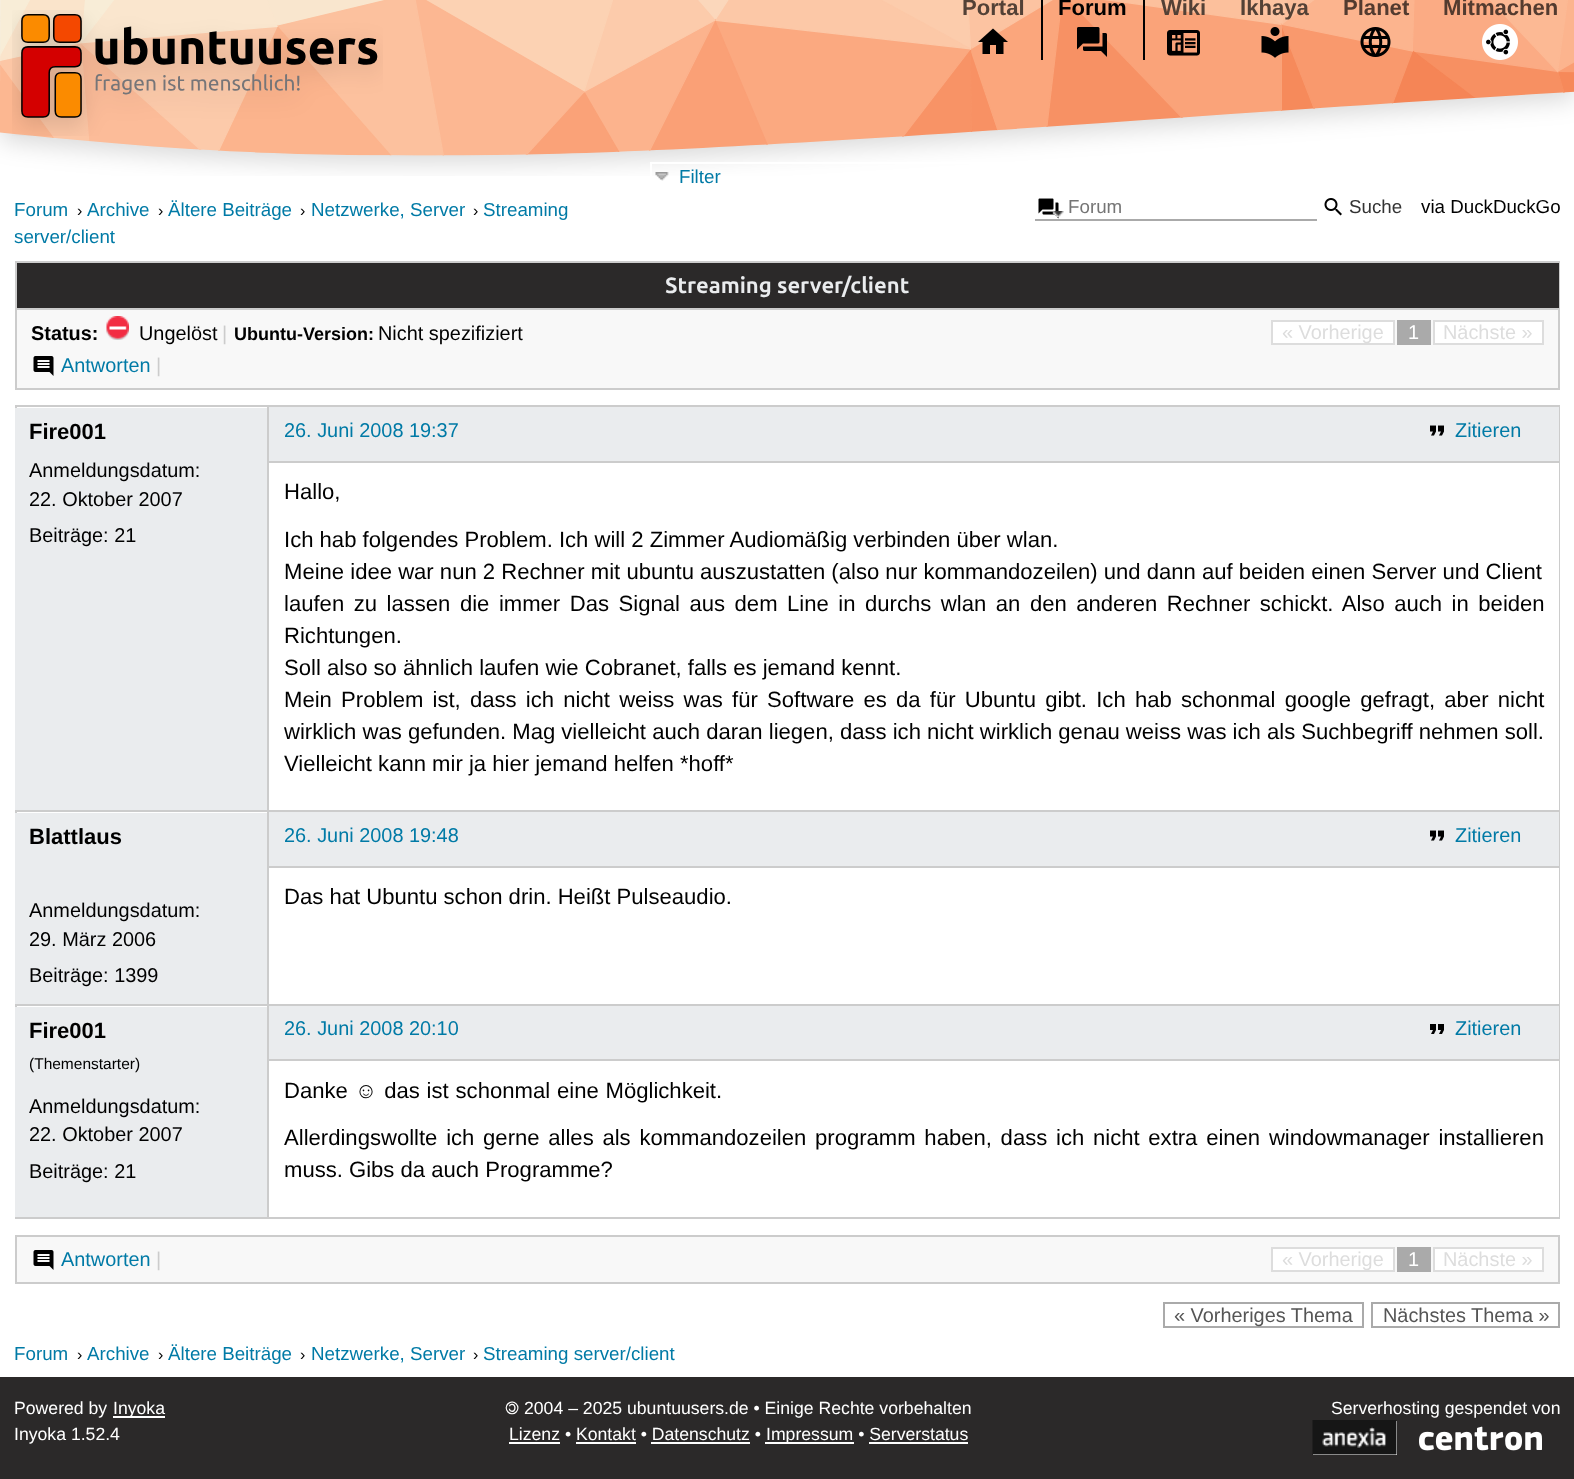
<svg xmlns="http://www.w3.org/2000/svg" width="1574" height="1479">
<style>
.a{font:bold 22.08px Liberation Sans;fill:#534136}
.b{font:bold 22.08px Liberation Sans;fill:#000}
.c{font:bold 22.08px Liberation Sans;fill:#533b2f}
.d{font:18.75px Liberation Sans;fill:#007aa6}
.e{font:16px Liberation Sans;fill:#000}
.f{font:18.75px Liberation Sans;fill:#757575}
.g{font:18.75px Liberation Sans;fill:#333}
.h{font:18.75px Liberation Sans;fill:#000}
.i{font:bold 22.08px Ubuntu;fill:#eaecee}
.j{font:bold 19.9px Liberation Sans;fill:#000}
.k{font:19.9px Liberation Sans;fill:#000}
.l{font:19.9px Liberation Sans;fill:#ccc}
.m{font:bold 18px Liberation Sans;fill:#000}
.n{font:19.9px Liberation Sans;fill:#ddd}
.o{font:19.9px Liberation Sans;fill:#fff}
.p{font:19.9px Liberation Sans;fill:#007aa6}
.q{font:bold 22px Liberation Sans;fill:#000}
.r{font:22.08px Liberation Sans;fill:#000}
.s{font:15.5px Liberation Sans;fill:#000}
.t{font:19.9px Liberation Sans;fill:#555}
.u{font:17.65px Liberation Sans;fill:#fff}
.v{font:17.65px FreeSans;fill:#fff}
</style>
<rect width="100%" height="100%" fill="#fff"/>
<image href="1.png" x="0" y="0" width="1574" height="176"/>
<image href="2.png" x="12" y="10" width="371" height="126"/>
<image href="3.png" x="978" y="28" width="30" height="26"/>
<path fill="#000" d="M1143 0h2v60H1143z"/>
<path fill="#000" d="M1041 0h2v60H1041z"/>
<image href="4.png" x="1077" y="27" width="30" height="30"/>
<image href="5.png" x="1167" y="30" width="33" height="26"/>
<image href="6.png" x="1261" y="27" width="28" height="31"/>
<image href="7.png" x="1360" y="27" width="31" height="30"/>
<image href="8.png" x="1482" y="24" width="36" height="36"/>
<path fill="none" stroke="#fff" stroke-width="2" d="M651 163h361v33H651z"/>
<image href="9.png" x="655" y="172" width="14" height="9"/>
<image href="11.png" x="1038" y="198" width="21" height="21"/>
<image href="10.png" x="1052" y="211" width="12" height="6"/>
<path fill="#aaa" d="M1035 219h282v2H1035z"/>
<image href="12.png" x="1324" y="198" width="18" height="18"/>
<path fill="#f8f8f8" d="M17 310h1541v78H17z"/>
<path fill="none" stroke="#ccc" stroke-width="2" d="M16 262h1543v127H16z"/>
<path fill="#2b2929" d="M17 263h1542v45H17z"/>
<path fill="#ccc" d="M17 308h1542v2H17z"/>
<image href="13.png" x="106" y="316" width="23" height="24"/>
<path fill="#fff" stroke="#ddd" stroke-width="2" d="M1272 321h122v23H1272z"/>
<path fill="#aaa" d="M1397 320h34v25H1397z"/>
<path fill="#fff" stroke="#ddd" stroke-width="2" d="M1434 321h109v23H1434z"/>
<image href="14.png" x="33" y="356" width="21" height="20"/>
<path fill="#ccc" d="M15 405h1545v2H15z"/>
<path fill="#ccc" d="M1559 405h1v813H1559z"/>
<path fill="#ccc" d="M15 1217h1545v2H15z"/>
<path fill="#ccc" d="M15 405h2v813H15z"/>
<path fill="#eaecee" d="M15 408h252v402H15z"/>
<path fill="#eaecee" d="M269 407h1290v54H269z"/>
<path fill="#ccc" d="M269 461h1290v2H269z"/>
<image href="15.png" x="1430" y="425" width="14" height="11"/>
<path fill="#ccc" d="M15 810h1545v2H15z"/>
<path fill="#ccc" d="M15 1004h1545v2H15z"/>
<path fill="#ccc" d="M267 1004h2v214H267z"/>
<path fill="#ccc" d="M267 405h2v600H267z"/>
<path fill="#eaecee" d="M15 813h252v191H15z"/>
<path fill="#eaecee" d="M269 812h1290v54H269z"/>
<path fill="#ccc" d="M269 866h1290v2H269z"/>
<image href="15.png" x="1430" y="830" width="14" height="11"/>
<path fill="#eaecee" d="M15 1007h252v210H15z"/>
<path fill="#eaecee" d="M269 1006h1290v53H269z"/>
<path fill="#ccc" d="M269 1059h1290v2H269z"/>
<image href="16.png" x="1430" y="1024" width="14" height="10"/>
<path fill="#f8f8f8" stroke="#ccc" stroke-width="2" d="M16 1236h1543v47H16z"/>
<image href="14.png" x="33" y="1250" width="21" height="20"/>
<path fill="#fff" stroke="#ddd" stroke-width="2" d="M1272 1248h122v23H1272z"/>
<path fill="#aaa" d="M1397 1247h34v25H1397z"/>
<path fill="#fff" stroke="#ddd" stroke-width="2" d="M1434 1248h109v23H1434z"/>
<path fill="none" stroke="#aaa" stroke-width="2" d="M1164 1303h199v24H1164z"/>
<path fill="none" stroke="#aaa" stroke-width="2" d="M1372 1303h187v24H1372z"/>
<path fill="#2b2929" d="M0 1377h1574v102H0z"/>
<path fill="#fff" d="M113 1416h52v2H113z"/>
<path fill="#fff" d="M509 1442h51v2H509z"/>
<path fill="#fff" d="M765 1442h89v2H765z"/>
<path fill="#fff" d="M576 1442h60v2H576z"/>
<path fill="#fff" d="M651 1442h99v2H651z"/>
<path fill="#fff" d="M869 1442h99v2H869z"/>
<path fill="#fff" d="M1313 1421h84v34H1313z"/>
<image href="17.png" x="1312" y="1420" width="85" height="35"/>
<image href="18.png" x="1419" y="1426" width="123" height="25"/>
<text class="a" x="962" y="15">Portal</text>
<text class="b" x="1058" y="15">Forum</text>
<text class="a" x="1161" y="15">Wiki</text>
<text class="a" x="1240" y="15">Ikhaya</text>
<text class="c" x="1343" y="15">Planet</text>
<text class="c" x="1443" y="15">Mitmachen</text>
<text class="d" x="679" y="183">Filter</text>
<text class="d" x="14" y="216">Forum</text>
<text class="e" x="77" y="216">›</text>
<text class="d" x="87" y="216">Archive</text>
<text class="e" x="158" y="216">›</text>
<text class="d" x="168" y="216">Ältere Beiträge</text>
<text class="e" x="300" y="216">›</text>
<text class="d" x="311" y="216">Netzwerke, Server</text>
<text class="e" x="473" y="216">›</text>
<text class="d" x="483" y="216">Streaming</text>
<text class="d" x="14" y="243">server/client</text>
<text class="f" x="1068" y="213">Forum</text>
<text class="g" x="1349" y="213">Suche</text>
<text class="h" x="1421" y="213">via DuckDuckGo</text>
<text class="i" x="665" y="293">Streaming server/client</text>
<text class="j" x="31" y="340">Status:</text>
<text class="k" x="139" y="340">Ungelöst</text>
<text class="l" x="222" y="340">|</text>
<text class="m" x="234" y="340">Ubuntu-Version:</text>
<text class="k" x="378" y="340">Nicht spezifiziert</text>
<text class="n" x="1282" y="339">« Vorherige</text>
<text class="o" x="1408" y="339">1</text>
<text class="n" x="1443" y="339">Nächste »</text>
<text class="p" x="61" y="372">Antworten</text>
<text class="l" x="156" y="372">|</text>
<text class="q" x="29" y="439">Fire001</text>
<text class="k" x="29" y="477">Anmeldungsdatum:</text>
<text class="k" x="29" y="506">22. Oktober 2007</text>
<text class="k" x="29" y="542">Beiträge: 21</text>
<text class="p" x="284" y="437">26. Juni 2008 19:37</text>
<text class="p" x="1455" y="437">Zitieren</text>
<text class="r" x="284" y="499">Hallo,</text>
<text class="r" x="284" y="547">Ich hab folgendes Problem. Ich will 2 Zimmer Audiomäßig verbinden über wlan.</text>
<text class="r" x="284" y="579">Meine idee war nun 2 Rechner mit ubuntu auszustatten (also nur kommandozeilen) und dann auf beiden einen Server und Client</text>
<text class="r" x="284" y="611" word-spacing="3.4">laufen zu lassen die immer Das Signal aus dem Line in durchs wlan an den anderen Rechner schickt. Also auch in beiden</text>
<text class="r" x="284" y="643">Richtungen.</text>
<text class="r" x="284" y="675">Soll also so ähnlich laufen wie Cobranet, falls es jemand kennt.</text>
<text class="r" x="284" y="707" word-spacing="3.1">Mein Problem ist, dass ich nicht weiss was für Software es da für Ubuntu gibt. Ich hab schonmal google gefragt, aber nicht</text>
<text class="r" x="284" y="739">wirklich was gefunden. Mag vielleicht auch daran liegen, dass ich nicht wirklich genau weiss was ich als Suchbegriff nehmen soll.</text>
<text class="r" x="284" y="771">Vielleicht kann mir ja hier jemand helfen *hoff*</text>
<text class="q" x="29" y="844">Blattlaus</text>
<text class="k" x="29" y="917">Anmeldungsdatum:</text>
<text class="k" x="29" y="946">29. März 2006</text>
<text class="k" x="29" y="982">Beiträge: 1399</text>
<text class="p" x="284" y="842">26. Juni 2008 19:48</text>
<text class="p" x="1455" y="842">Zitieren</text>
<text class="r" x="284" y="904">Das hat Ubuntu schon drin. Heißt Pulseaudio.</text>
<text class="q" x="29" y="1038">Fire001</text>
<text class="s" x="29" y="1069">(Themenstarter)</text>
<text class="k" x="29" y="1113">Anmeldungsdatum:</text>
<text class="k" x="29" y="1141">22. Oktober 2007</text>
<text class="k" x="29" y="1178">Beiträge: 21</text>
<text class="p" x="284" y="1035">26. Juni 2008 20:10</text>
<text class="p" x="1455" y="1035">Zitieren</text>
<text class="r" x="284" y="1098" word-spacing="0.75">Danke ☺ das ist schonmal eine Möglichkeit.</text>
<text class="r" x="284" y="1145" word-spacing="2.6">Allerdingswollte ich gerne alles als kommandozeilen programm haben, dass ich nicht extra einen windowmanager installieren</text>
<text class="r" x="284" y="1177">muss. Gibs da auch Programme?</text>
<text class="p" x="61" y="1266">Antworten</text>
<text class="l" x="156" y="1266">|</text>
<text class="n" x="1282" y="1266">« Vorherige</text>
<text class="o" x="1408" y="1266">1</text>
<text class="n" x="1443" y="1266">Nächste »</text>
<text class="t" x="1174" y="1322">« Vorheriges Thema</text>
<text class="t" x="1383" y="1322">Nächstes Thema »</text>
<text class="d" x="14" y="1360">Forum</text>
<text class="e" x="77" y="1360">›</text>
<text class="d" x="87" y="1360">Archive</text>
<text class="e" x="158" y="1360">›</text>
<text class="d" x="168" y="1360">Ältere Beiträge</text>
<text class="e" x="300" y="1360">›</text>
<text class="d" x="311" y="1360">Netzwerke, Server</text>
<text class="e" x="473" y="1360">›</text>
<text class="d" x="483" y="1360">Streaming server/client</text>
<text class="u" x="14" y="1414">Powered by</text>
<text class="u" x="113" y="1414">Inyoka</text>
<text class="u" x="14" y="1440">Inyoka 1.52.4</text>
<text class="v" x="505" y="1414">🄯</text>
<text class="u" x="524" y="1414">2004 – 2025 ubuntuusers.de • Einige Rechte vorbehalten</text>
<text class="u" x="509" y="1440">Lizenz • Kontakt • Datenschutz •</text>
<text class="u" x="766" y="1440">Impressum • Serverstatus</text>
<text class="u" x="1331" y="1414">Serverhosting gespendet von</text>
</svg>
